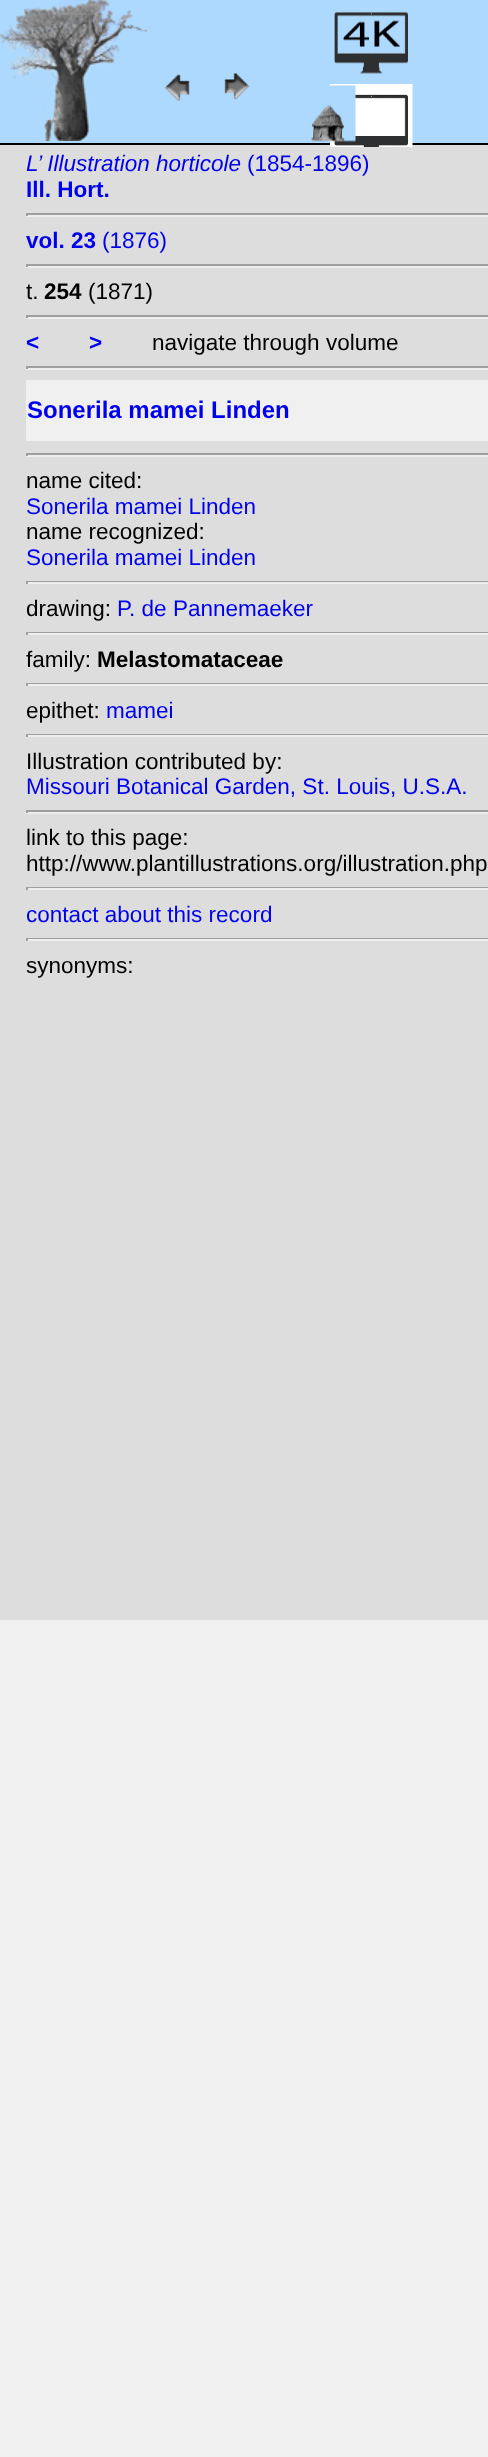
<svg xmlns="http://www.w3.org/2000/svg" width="488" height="2457">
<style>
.a{font:italic 22.5px Liberation Sans;fill:#00e}
.b{font:22.5px Liberation Sans;fill:#00e}
.c{font:bold 22.5px Liberation Sans;fill:#00e}
.d{font:22.5px Liberation Sans;fill:#000}
.e{font:bold 22.5px Liberation Sans;fill:#000}
.f{font:bold 24px Liberation Sans;fill:#00e}
</style>
<rect width="100%" height="100%" fill="#f0f0f0"/>
<path fill="#ddd" d="M0 145h488v1475H0z"/>
<path fill="#add9fe" d="M0 0h488v143H0z"/>
<path fill="#000" d="M0 143h488v2H0z"/>
<image href="1.png" x="0" y="0" width="150" height="141"/>
<image href="2.png" x="164" y="74" width="26" height="27"/>
<image href="3.png" x="224" y="73" width="26" height="27"/>
<image href="4.png" x="333" y="11" width="75" height="63"/>
<image href="5.png" x="330" y="84" width="83" height="63"/>
<image href="6.png" x="311" y="85" width="45" height="57"/>
<path fill="#9f9f9f" d="M26 213h462v2H26z"/>
<path fill="#eee" d="M26 215h462v2H26z"/>
<path fill="#9f9f9f" d="M26 213h2v3H26z"/>
<path fill="#9f9f9f" d="M26 264h462v2H26z"/>
<path fill="#eee" d="M26 266h462v2H26z"/>
<path fill="#9f9f9f" d="M26 264h2v3H26z"/>
<path fill="#9f9f9f" d="M26 315h462v2H26z"/>
<path fill="#eee" d="M26 317h462v2H26z"/>
<path fill="#9f9f9f" d="M26 315h2v3H26z"/>
<path fill="#9f9f9f" d="M26 366h462v2H26z"/>
<path fill="#eee" d="M26 368h462v2H26z"/>
<path fill="#9f9f9f" d="M26 366h2v3H26z"/>
<path fill="#f0f0f0" d="M26 380h462v61H26z"/>
<path fill="#9f9f9f" d="M26 453h462v2H26z"/>
<path fill="#eee" d="M26 455h462v2H26z"/>
<path fill="#9f9f9f" d="M26 453h2v3H26z"/>
<path fill="#9f9f9f" d="M26 581h462v1H26z"/>
<path fill="#eee" d="M26 582h462v2H26z"/>
<path fill="#9f9f9f" d="M26 581h2v3H26z"/>
<path fill="#9f9f9f" d="M26 632h462v1H26z"/>
<path fill="#eee" d="M26 633h462v2H26z"/>
<path fill="#9f9f9f" d="M26 632h2v3H26z"/>
<path fill="#9f9f9f" d="M26 683h462v1H26z"/>
<path fill="#eee" d="M26 684h462v2H26z"/>
<path fill="#9f9f9f" d="M26 683h2v3H26z"/>
<path fill="#9f9f9f" d="M26 734h462v1H26z"/>
<path fill="#eee" d="M26 735h462v2H26z"/>
<path fill="#9f9f9f" d="M26 734h2v3H26z"/>
<path fill="#9f9f9f" d="M26 810h462v2H26z"/>
<path fill="#eee" d="M26 812h462v2H26z"/>
<path fill="#9f9f9f" d="M26 810h2v3H26z"/>
<path fill="#9f9f9f" d="M26 887h462v1H26z"/>
<path fill="#eee" d="M26 888h462v2H26z"/>
<path fill="#9f9f9f" d="M26 887h2v3H26z"/>
<path fill="#9f9f9f" d="M26 938h462v1H26z"/>
<path fill="#eee" d="M26 939h462v2H26z"/>
<path fill="#9f9f9f" d="M26 938h2v3H26z"/>
<text class="a" x="26" y="171">L’ Illustration horticole</text>
<text class="b" x="247" y="171">(1854-1896)</text>
<text class="c" x="26" y="197">Ill. Hort.</text>
<text class="c" x="26" y="248">vol. 23</text>
<text class="b" x="102" y="248">(1876)</text>
<text class="d" x="26" y="299">t.</text>
<text class="e" x="44" y="299">254</text>
<text class="d" x="88" y="299">(1871)</text>
<text class="c" x="26" y="350">&lt;</text>
<text class="c" x="89" y="350">&gt;</text>
<text class="d" x="152" y="350">navigate through volume</text>
<text class="f" x="27" y="418">Sonerila mamei Linden</text>
<text class="d" x="26" y="488">name cited:</text>
<text class="b" x="26" y="514">Sonerila mamei Linden</text>
<text class="d" x="26" y="539">name recognized:</text>
<text class="b" x="26" y="565">Sonerila mamei Linden</text>
<text class="d" x="26" y="616">drawing:</text>
<text class="b" x="117" y="616">P. de Pannemaeker</text>
<text class="d" x="26" y="667">family:</text>
<text class="e" x="97" y="667">Melastomataceae</text>
<text class="d" x="26" y="718">epithet:</text>
<text class="b" x="106" y="718">mamei</text>
<text class="d" x="26" y="769">Illustration contributed by:</text>
<text class="b" x="26" y="794">Missouri Botanical Garden, St. Louis, U.S.A.</text>
<text class="d" x="26" y="845">link to this page:</text>
<text class="d" x="26" y="871">http://www.plantillustrations.org/illustration.php</text>
<text class="b" x="26" y="922">contact about this record</text>
<text class="d" x="26" y="973">synonyms:</text>
</svg>
